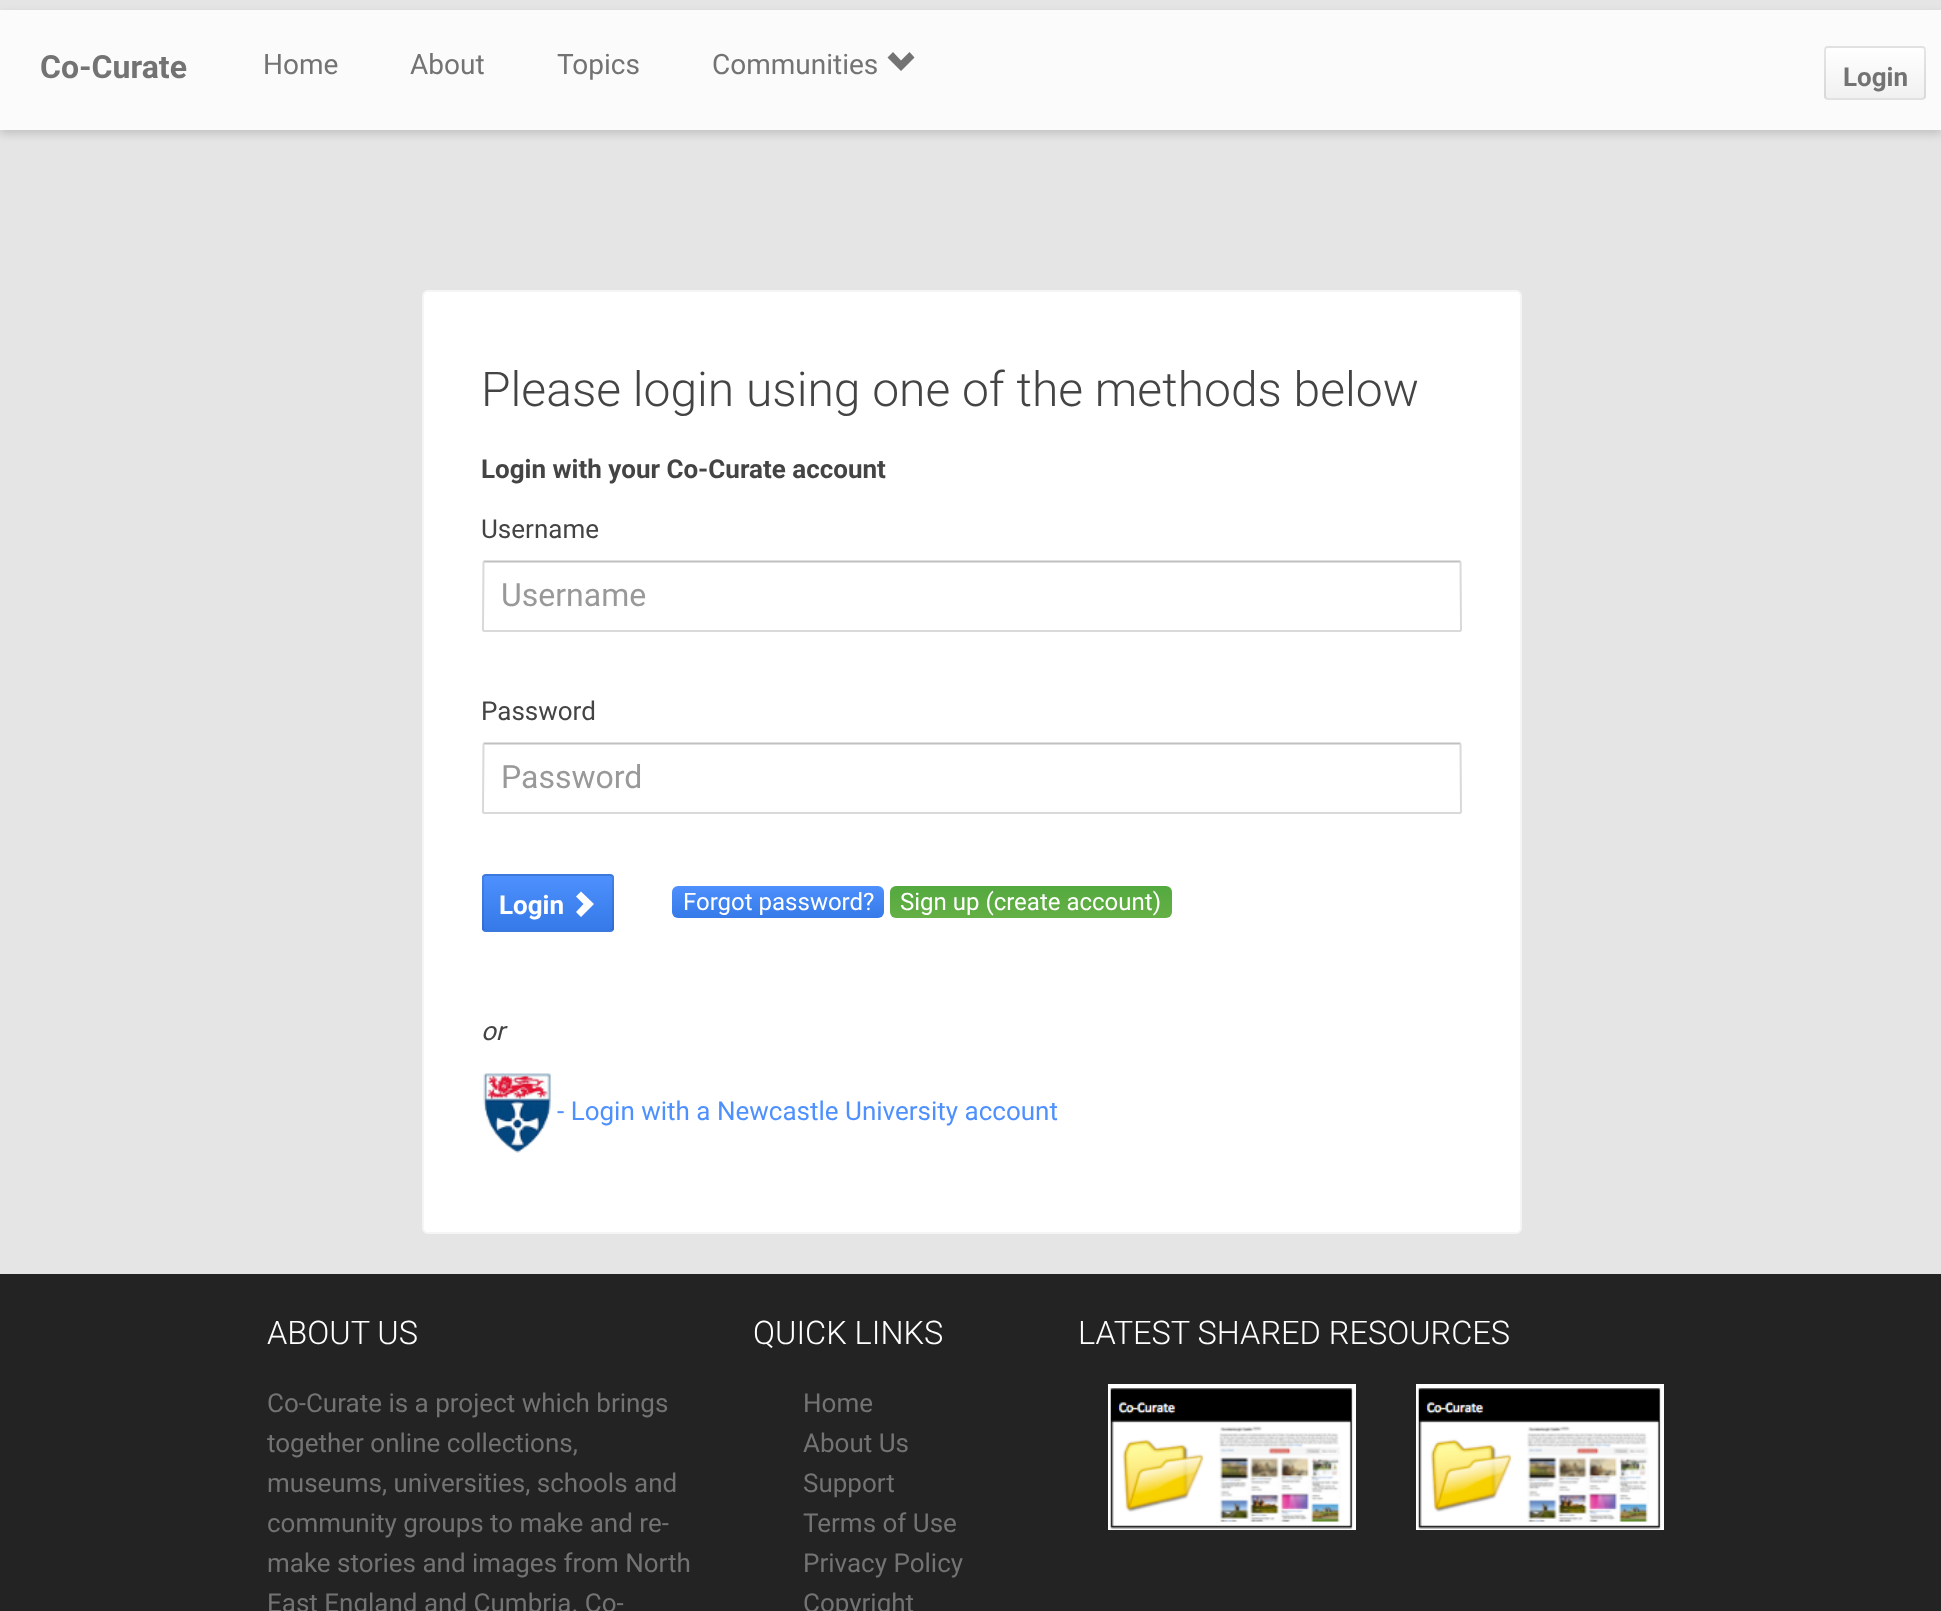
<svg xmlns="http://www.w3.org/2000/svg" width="1941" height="1611">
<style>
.a{font:bold 32px Roboto;fill:#737373}
.b{font:28px Roboto;fill:#737373}
.c{font:bold 26px Roboto;fill:#737373}
.d{font:300 48px Roboto;fill:#444}
.e{font:bold 26px Roboto;fill:#444}
.f{font:26px Roboto;fill:#444}
.g{font:32px Roboto;fill:#999}
.h{font:bold 26px Roboto;fill:#fff}
.i{font:24px Roboto;fill:#fff}
.j{font:italic 26px Roboto;fill:#444}
.k{font:26px Roboto;fill:#4d90fe}
.l{font:300 32.5px Roboto;fill:#fff}
.m{font:26px Roboto;fill:#737373}
</style>
<defs>
<clipPath id="clip1"><rect x="1824" y="46" width="102" height="54" rx="4"/></clipPath>
<linearGradient id="g1" gradientUnits="userSpaceOnUse" x1="1875" y1="48" x2="1875" y2="98"><stop offset="0" stop-color="#fff"/><stop offset="1" stop-color="#f1f1f1"/></linearGradient>
<clipPath id="clip2"><rect x="482" y="874" width="132" height="58" rx="4"/></clipPath>
<linearGradient id="g2" gradientUnits="userSpaceOnUse" x1="548" y1="876" x2="548" y2="930"><stop offset="0" stop-color="#4d90fe"/><stop offset="1" stop-color="#357ae8"/></linearGradient>
<linearGradient id="g3" gradientUnits="userSpaceOnUse" x1="778" y1="886" x2="778" y2="918"><stop offset="0" stop-color="#4d90fe"/><stop offset="1" stop-color="#357ae8"/></linearGradient>
<linearGradient id="g4" gradientUnits="userSpaceOnUse" x1="1031" y1="886" x2="1031" y2="918"><stop offset="0" stop-color="#53a93f"/><stop offset="1" stop-color="#65b045"/></linearGradient>
</defs>
<rect width="100%" height="100%" fill="#e5e5e5"/>
<path fill="#00000026" filter="blur(4px)" d="M0 14h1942v120H0z"/>
<path fill="#fbfbfb" d="M0 10h1941v120H0z"/>
<path fill="#737373" d="M887.5 57.5l13.5 13.5l13.5-13.5l-5-5.5l-8.5 8.5l-8-8.5z"/>
<g clip-path="url(#clip1)">
<path fill="url(#g1)" d="M1824 48h102v50H1824z"/>
</g>
<rect fill="none" stroke="#0000001a" stroke-width="2" x="1825" y="47" width="100" height="52" rx="3"/>
<rect fill="#fff" stroke="#f5f5f5" stroke-width="2" x="423" y="291" width="1098" height="942" rx="5"/>
<path fill="none" stroke="#c0c0c0" stroke-width="2" d="M483.5 561.5h977"/>
<path fill="none" stroke="#d9d9d9" stroke-width="2" d="M1460.5 561.5l.5 68.5l-1 1h-976l-1-1l.5-68.5"/>
<path fill="none" stroke="#c0c0c0" stroke-width="2" d="M483.5 743.5h977"/>
<path fill="none" stroke="#d9d9d9" stroke-width="2" d="M1460.5 743.5l.5 68.5l-1 1h-976l-1-1l.5-68.5"/>
<rect fill="#4387f5" x="482" y="874" width="132" height="58" rx="4"/>
<g clip-path="url(#clip2)">
<path fill="url(#g2)" d="M482 876h132v54H482z"/>
</g>
<rect fill="none" stroke="#0000001a" stroke-width="2" x="483" y="875" width="130" height="56" rx="3"/>
<path fill="#fff" d="M576 912l7.5-8l-7.5-7.5l5-5l13 12.5l-13 13z"/>
<rect fill="url(#g3)" x="672" y="886" width="212" height="32" rx="6"/>
<rect fill="url(#g4)" x="890" y="886" width="282" height="32" rx="6"/>
<image href="1.png" x="483" y="1073" width="69" height="80"/>
<path fill="#232323" d="M0 1274h1941v337H0z"/>
<image href="2.png" x="1108" y="1384" width="248" height="146"/>
<image href="2.png" x="1416" y="1384" width="248" height="146"/>
<text class="a" x="40" y="78">Co-Curate</text>
<text class="b" x="263" y="74">Home</text>
<text class="b" x="410" y="74">About</text>
<text class="b" x="557" y="74">Topics</text>
<text class="b" x="712" y="74">Communities</text>
<text class="c" x="1843" y="86">Login</text>
<text class="d" x="481" y="406">Please login using one of the methods below</text>
<text class="e" x="481" y="478">Login with your Co-Curate account</text>
<text class="f" x="481" y="538">Username</text>
<text class="g" x="501" y="606">Username</text>
<text class="f" x="481" y="720">Password</text>
<text class="g" x="501" y="788">Password</text>
<text class="h" x="499" y="914">Login</text>
<text class="i" x="683" y="910">Forgot password?</text>
<text class="i" x="900" y="910">Sign up (create account)</text>
<text class="j" x="481" y="1040">or</text>
<text class="k" x="557" y="1120">- Login with a Newcastle University account</text>
<text class="l" x="267" y="1344">ABOUT US</text>
<text class="m" x="267" y="1412">Co-Curate is a project which brings</text>
<text class="m" x="267" y="1452">together online collections,</text>
<text class="m" x="267" y="1492">museums, universities, schools and</text>
<text class="m" x="267" y="1532">community groups to make and re-</text>
<text class="m" x="267" y="1572">make stories and images from North</text>
<text class="m" x="267" y="1612">East England and Cumbria. Co-</text>
<text class="l" x="753" y="1344">QUICK LINKS</text>
<text class="m" x="803" y="1412">Home</text>
<text class="m" x="803" y="1452">About Us</text>
<text class="m" x="803" y="1492">Support</text>
<text class="m" x="803" y="1532">Terms of Use</text>
<text class="m" x="803" y="1572">Privacy Policy</text>
<text class="m" x="803" y="1612">Copyright</text>
<text class="l" x="1078" y="1344">LATEST SHARED RESOURCES</text>
</svg>
